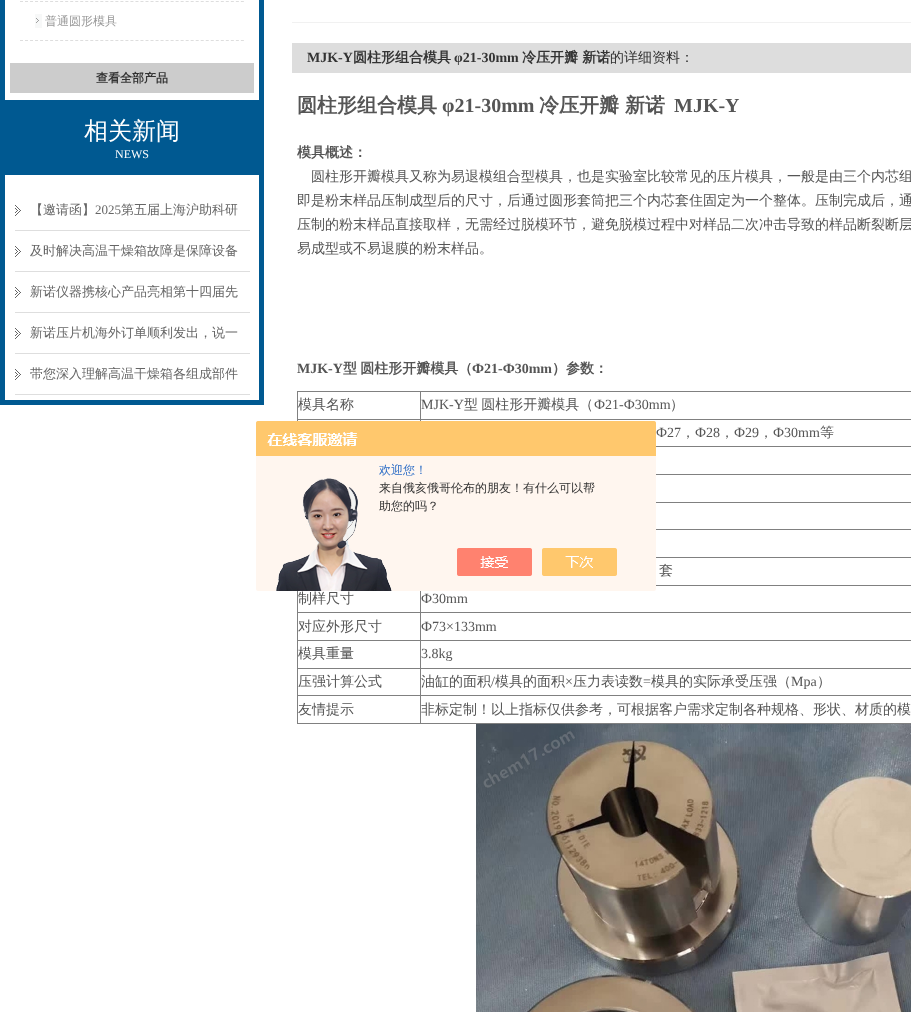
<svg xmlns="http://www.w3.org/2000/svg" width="911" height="1012">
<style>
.a{font:500 12px WenQuanYi Zen Hei;fill:#999}
.b{font:bold 12px WenQuanYi Zen Hei;fill:#333}
.c{font:500 24px WenQuanYi Zen Hei;fill:#fff}
.d{font:12px Liberation Serif;fill:#fff}
.e{font:500 13px WenQuanYi Zen Hei;fill:#666}
.f{font:13px Liberation Serif;fill:#666}
.g{font:bold 14px Liberation Serif;fill:#333}
.h{font:bold 14px WenQuanYi Zen Hei;fill:#333}
.i{font:500 14px WenQuanYi Zen Hei;fill:#333}
.j{font:bold 20px WenQuanYi Zen Hei;fill:#555}
.k{font:bold 20px Liberation Serif;fill:#555}
.l{font:bold 14px WenQuanYi Zen Hei;fill:#555}
.m{font:500 14px WenQuanYi Zen Hei;fill:#555}
.n{font:bold 14px Liberation Serif;fill:#555}
.o{font:14px Liberation Serif;fill:#555}
.p{font:500 12px WenQuanYi Zen Hei;fill:#2e6ec6}
.q{font:500 12px WenQuanYi Zen Hei;fill:#333}
</style>
<rect width="100%" height="100%" fill="#fff"/>
<path fill="#005991" d="M259 0h5v105H259z"/>
<path fill="#005991" d="M0 100h264v5H0z"/>
<path fill="#005991" d="M0 0h5v105H0z"/>
<path fill="none" stroke="#dedede" stroke-dasharray="3 2.02" d="M20 1.5h224"/>
<path fill="none" stroke="#dedede" stroke-dasharray="3 2.02" d="M20 40.5h224"/>
<image href="1.png" x="35" y="14" width="7" height="14"/>
<path fill="#ccc" d="M10 63h244v30H10z"/>
<path fill="#005991" d="M0 105h264v70H0z"/>
<path fill="#005991" d="M259 175h5v230H259z"/>
<path fill="#005991" d="M0 400h264v5H0z"/>
<path fill="#005991" d="M0 175h5v230H0z"/>
<image href="2.png" x="15" y="205" width="6" height="11"/>
<path fill="#dedede" d="M15 230h235v1H15z"/>
<image href="2.png" x="15" y="246" width="6" height="11"/>
<path fill="#dedede" d="M15 271h235v1H15z"/>
<image href="2.png" x="15" y="287" width="6" height="11"/>
<path fill="#dedede" d="M15 312h235v1H15z"/>
<image href="2.png" x="15" y="328" width="6" height="11"/>
<path fill="#dedede" d="M15 353h235v1H15z"/>
<image href="2.png" x="15" y="369" width="6" height="11"/>
<path fill="#dedede" d="M15 394h235v1H15z"/>
<path fill="#f1f1f1" d="M292 22h619v1H292z"/>
<path fill="#ddd" d="M292 43h619v30H292z"/>
<path fill="#808080" d="M297 391h614v1H297z"/>
<path fill="#808080" d="M297 723h614v1H297z"/>
<path fill="#808080" d="M297 391h1v333H297z"/>
<path fill="#808080" d="M420 419h491v1H420z"/>
<path fill="#808080" d="M420 419h1v2H420z"/>
<path fill="#808080" d="M297 419h124v1H297z"/>
<path fill="#808080" d="M420 391h1v29H420z"/>
<path fill="#808080" d="M656 446h255v1H656z"/>
<path fill="#808080" d="M656 474h255v1H656z"/>
<path fill="#808080" d="M656 502h255v1H656z"/>
<path fill="#808080" d="M656 529h255v1H656z"/>
<path fill="#808080" d="M656 557h255v1H656z"/>
<path fill="#808080" d="M656 585h255v1H656z"/>
<path fill="#808080" d="M420 612h491v1H420z"/>
<path fill="#808080" d="M420 640h491v1H420z"/>
<path fill="#808080" d="M420 668h491v1H420z"/>
<path fill="#808080" d="M420 695h491v1H420z"/>
<path fill="#808080" d="M420 695h1v29H420z"/>
<path fill="#808080" d="M297 695h124v1H297z"/>
<path fill="#808080" d="M420 668h1v28H420z"/>
<path fill="#808080" d="M297 668h124v1H297z"/>
<path fill="#808080" d="M420 640h1v29H420z"/>
<path fill="#808080" d="M297 640h124v1H297z"/>
<path fill="#808080" d="M420 612h1v29H420z"/>
<path fill="#808080" d="M297 612h124v1H297z"/>
<path fill="#808080" d="M420 585h1v28H420z"/>
<image href="3.png" x="476" y="724" width="435" height="288"/>
<image href="4.png" x="256" y="421" width="400" height="170"/>
<text class="a" x="45" y="25">普通圆形模具</text>
<text class="b" x="96" y="82">查看全部产品</text>
<text class="c" x="84" y="139">相关新闻</text>
<text class="d" x="115" y="158">NEWS</text>
<text class="e" x="30" y="214">【邀请函】</text>
<text class="f" x="95" y="214">2025</text>
<text class="e" x="121" y="214">第五届上海沪助科研</text>
<text class="e" x="30" y="255">及时解决高温干燥箱故障是保障设备</text>
<text class="e" x="30" y="296">新诺仪器携核心产品亮相第十四届先</text>
<text class="e" x="30" y="337">新诺压片机海外订单顺利发出，说一</text>
<text class="e" x="30" y="378">带您深入理解高温干燥箱各组成部件</text>
<text class="g" x="307" y="62">MJK-Y</text>
<text class="h" x="353" y="62">圆柱形组合模具</text>
<text class="g" x="454" y="62">φ21-30mm</text>
<text class="h" x="522" y="62">冷压开瓣 新诺</text>
<text class="i" x="610" y="62">的详细资料：</text>
<text class="j" x="297" y="112">圆柱形组合模具</text>
<text class="k" x="442" y="112">φ21-30mm</text>
<text class="j" x="539" y="112">冷压开瓣 新诺</text>
<text class="k" x="674" y="112">MJK-Y</text>
<text class="l" x="297" y="157">模具概述：</text>
<text class="m" x="311" y="181">圆柱形开瓣模具又称为易退模组合型模具，也是实验室比较常见的压片模具，一般是由三个内芯组</text>
<text class="m" x="297" y="205">即是粉末样品压制成型后的尺寸，后通过圆形套筒把三个内芯套住固定为一个整体。压制完成后，通</text>
<text class="m" x="297" y="229">压制的粉末样品直接取样，无需经过脱模环节，避免脱模过程中对样品二次冲击导致的样品断裂断层</text>
<text class="m" x="297" y="253">易成型或不易退膜的粉末样品。</text>
<text class="n" x="297" y="373">MJK-Y</text>
<text class="l" x="343" y="373" word-spacing="-1">型 圆柱形开瓣模具（</text>
<text class="n" x="472" y="373">Ф21-Ф30mm</text>
<text class="l" x="552" y="373">）参数：</text>
<text class="m" x="298" y="409">模具名称</text>
<text class="o" x="421" y="409">MJK-Y</text>
<text class="m" x="464" y="409" word-spacing="-1">型 圆柱形开瓣模具（</text>
<text class="o" x="594" y="409">Ф21-Ф30mm</text>
<text class="m" x="670" y="409">）</text>
<text class="o" x="656" y="437">Ф27</text>
<text class="m" x="681" y="437">，</text>
<text class="o" x="695" y="437">Ф28</text>
<text class="m" x="720" y="437">，</text>
<text class="o" x="734" y="437">Ф29</text>
<text class="m" x="759" y="437">，</text>
<text class="o" x="773" y="437">Ф30mm</text>
<text class="m" x="820" y="437">等</text>
<text class="m" x="659" y="575">套</text>
<text class="m" x="298" y="603">制样尺寸</text>
<text class="o" x="421" y="603">Ф30mm</text>
<text class="m" x="298" y="631">对应外形尺寸</text>
<text class="o" x="421" y="631">Ф73×133mm</text>
<text class="m" x="298" y="658">模具重量</text>
<text class="o" x="421" y="658">3.8kg</text>
<text class="m" x="298" y="686">压强计算公式</text>
<text class="m" x="421" y="686">油缸的面积</text>
<text class="o" x="491" y="686">/</text>
<text class="m" x="495" y="686">模具的面积</text>
<text class="o" x="565" y="686">×</text>
<text class="m" x="573" y="686">压力表读数</text>
<text class="o" x="643" y="686">=</text>
<text class="m" x="651" y="686">模具的实际承受压强（</text>
<text class="o" x="791" y="686">Mpa</text>
<text class="m" x="817" y="686">）</text>
<text class="m" x="298" y="714">友情提示</text>
<text class="m" x="421" y="714">非标定制！以上指标仅供参考，可根据客户需求定制各种规格、形状、材质的模</text>
<text class="p" x="379" y="474">欢迎您！</text>
<text class="q" x="379" y="492">来自俄亥俄哥伦布的朋友！有什么可以帮</text>
<text class="q" x="379" y="510">助您的吗？</text>
</svg>
